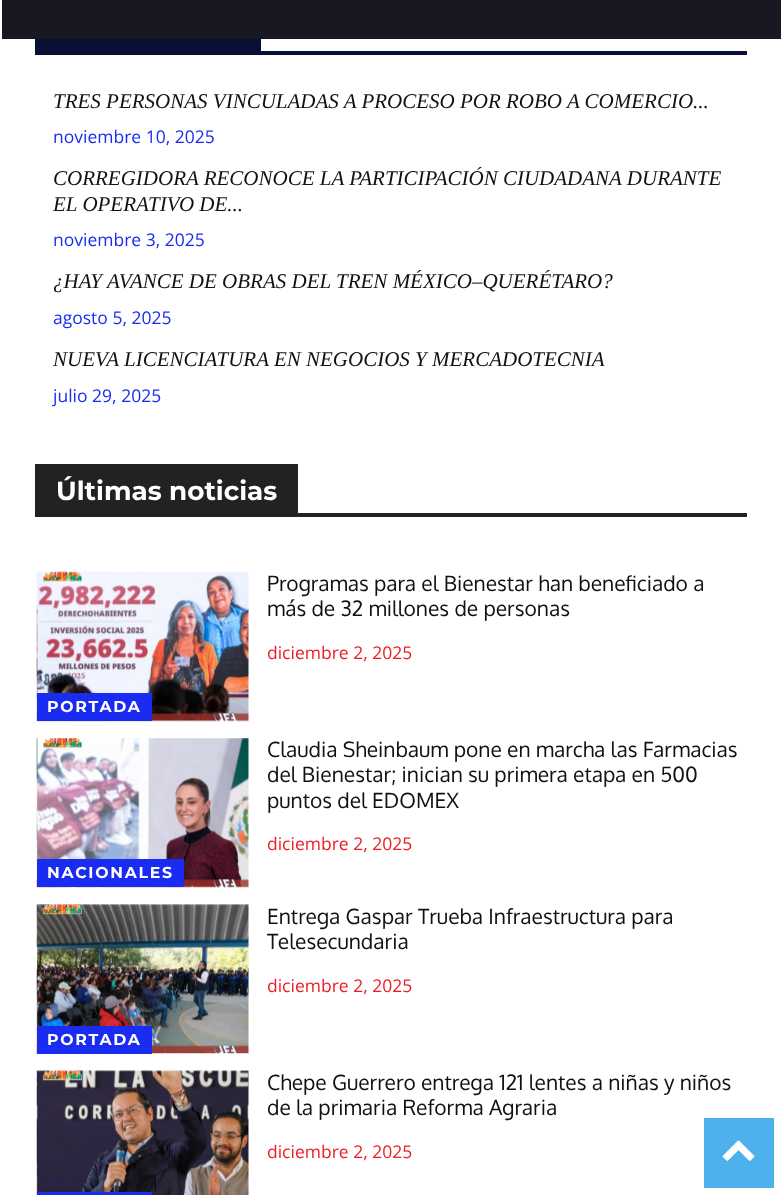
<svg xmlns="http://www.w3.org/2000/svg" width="781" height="1195">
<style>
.a{font:italic 21px Liberation Serif;fill:#111}
.b{font:17.5px Open Sans;fill:#1a2cf2}
.c{font:bold 26.25px Montserrat;fill:#fff}
.d{font:21px Oxygen;fill:#111}
.e{font:17.5px Open Sans;fill:#ed1c24}
.f{font:bold 15.75px Montserrat;letter-spacing:1.75px;fill:#fff}
</style>
<rect width="100%" height="100%" fill="#fff"/>
<path fill="#171822" d="M2 0h779v39H2z"/>
<path fill="#0a1035" d="M35 51h712v4H35z"/>
<path fill="#0a1035" d="M35 39h226v12H35z"/>
<path fill="#222" d="M35 513h712v4H35z"/>
<path fill="#222" d="M35 464h263v49H35z"/>
<image href="1.png" x="36" y="571" width="213" height="151"/>
<path fill="#1a2cf2" d="M37 693h115v28H37z"/>
<image href="2.png" x="36" y="738" width="213" height="150"/>
<path fill="#1a2cf2" d="M37 859h147v28H37z"/>
<image href="3.png" x="36" y="904" width="213" height="150"/>
<path fill="#1a2cf2" d="M37 1026h115v28H37z"/>
<image href="4.png" x="36" y="1070" width="213" height="125"/>
<path fill="#1a2cf2" d="M37 1192h115v3H37z"/>
<path fill="#4db2ec" d="M704 1118h70v70H704z"/>
<image href="5.png" x="722" y="1140" width="33" height="21"/>
<text class="a" x="53" y="108">TRES PERSONAS VINCULADAS A PROCESO POR ROBO A COMERCIO...</text>
<text class="b" x="53" y="143">noviembre 10, 2025</text>
<text class="a" x="53" y="185">CORREGIDORA RECONOCE LA PARTICIPACIÓN CIUDADANA DURANTE</text>
<text class="a" x="53" y="211">EL OPERATIVO DE...</text>
<text class="b" x="53" y="246">noviembre 3, 2025</text>
<text class="a" x="53" y="288">¿HAY AVANCE DE OBRAS DEL TREN MÉXICO–QUERÉTARO?</text>
<text class="b" x="53" y="324">agosto 5, 2025</text>
<text class="a" x="53" y="366">NUEVA LICENCIATURA EN NEGOCIOS Y MERCADOTECNIA</text>
<text class="b" x="53" y="402">julio 29, 2025</text>
<text class="c" x="56" y="500">Últimas noticias</text>
<text class="d" x="267" y="591">Programas para el Bienestar han beneficiado a</text>
<text class="d" x="267" y="616">más de 32 millones de personas</text>
<text class="e" x="267" y="659">diciembre 2, 2025</text>
<text class="f" x="47" y="712">PORTADA</text>
<text class="d" x="267" y="757">Claudia Sheinbaum pone en marcha las Farmacias</text>
<text class="d" x="267" y="782">del Bienestar; inician su primera etapa en 500</text>
<text class="d" x="267" y="808">puntos del EDOMEX</text>
<text class="e" x="267" y="850">diciembre 2, 2025</text>
<text class="f" x="47" y="878">NACIONALES</text>
<text class="d" x="267" y="924">Entrega Gaspar Trueba Infraestructura para</text>
<text class="d" x="267" y="949">Telesecundaria</text>
<text class="e" x="267" y="992">diciembre 2, 2025</text>
<text class="f" x="47" y="1045">PORTADA</text>
<text class="d" x="267" y="1090">Chepe Guerrero entrega 121 lentes a niñas y niños</text>
<text class="d" x="267" y="1115">de la primaria Reforma Agraria</text>
<text class="e" x="267" y="1158">diciembre 2, 2025</text>
</svg>
